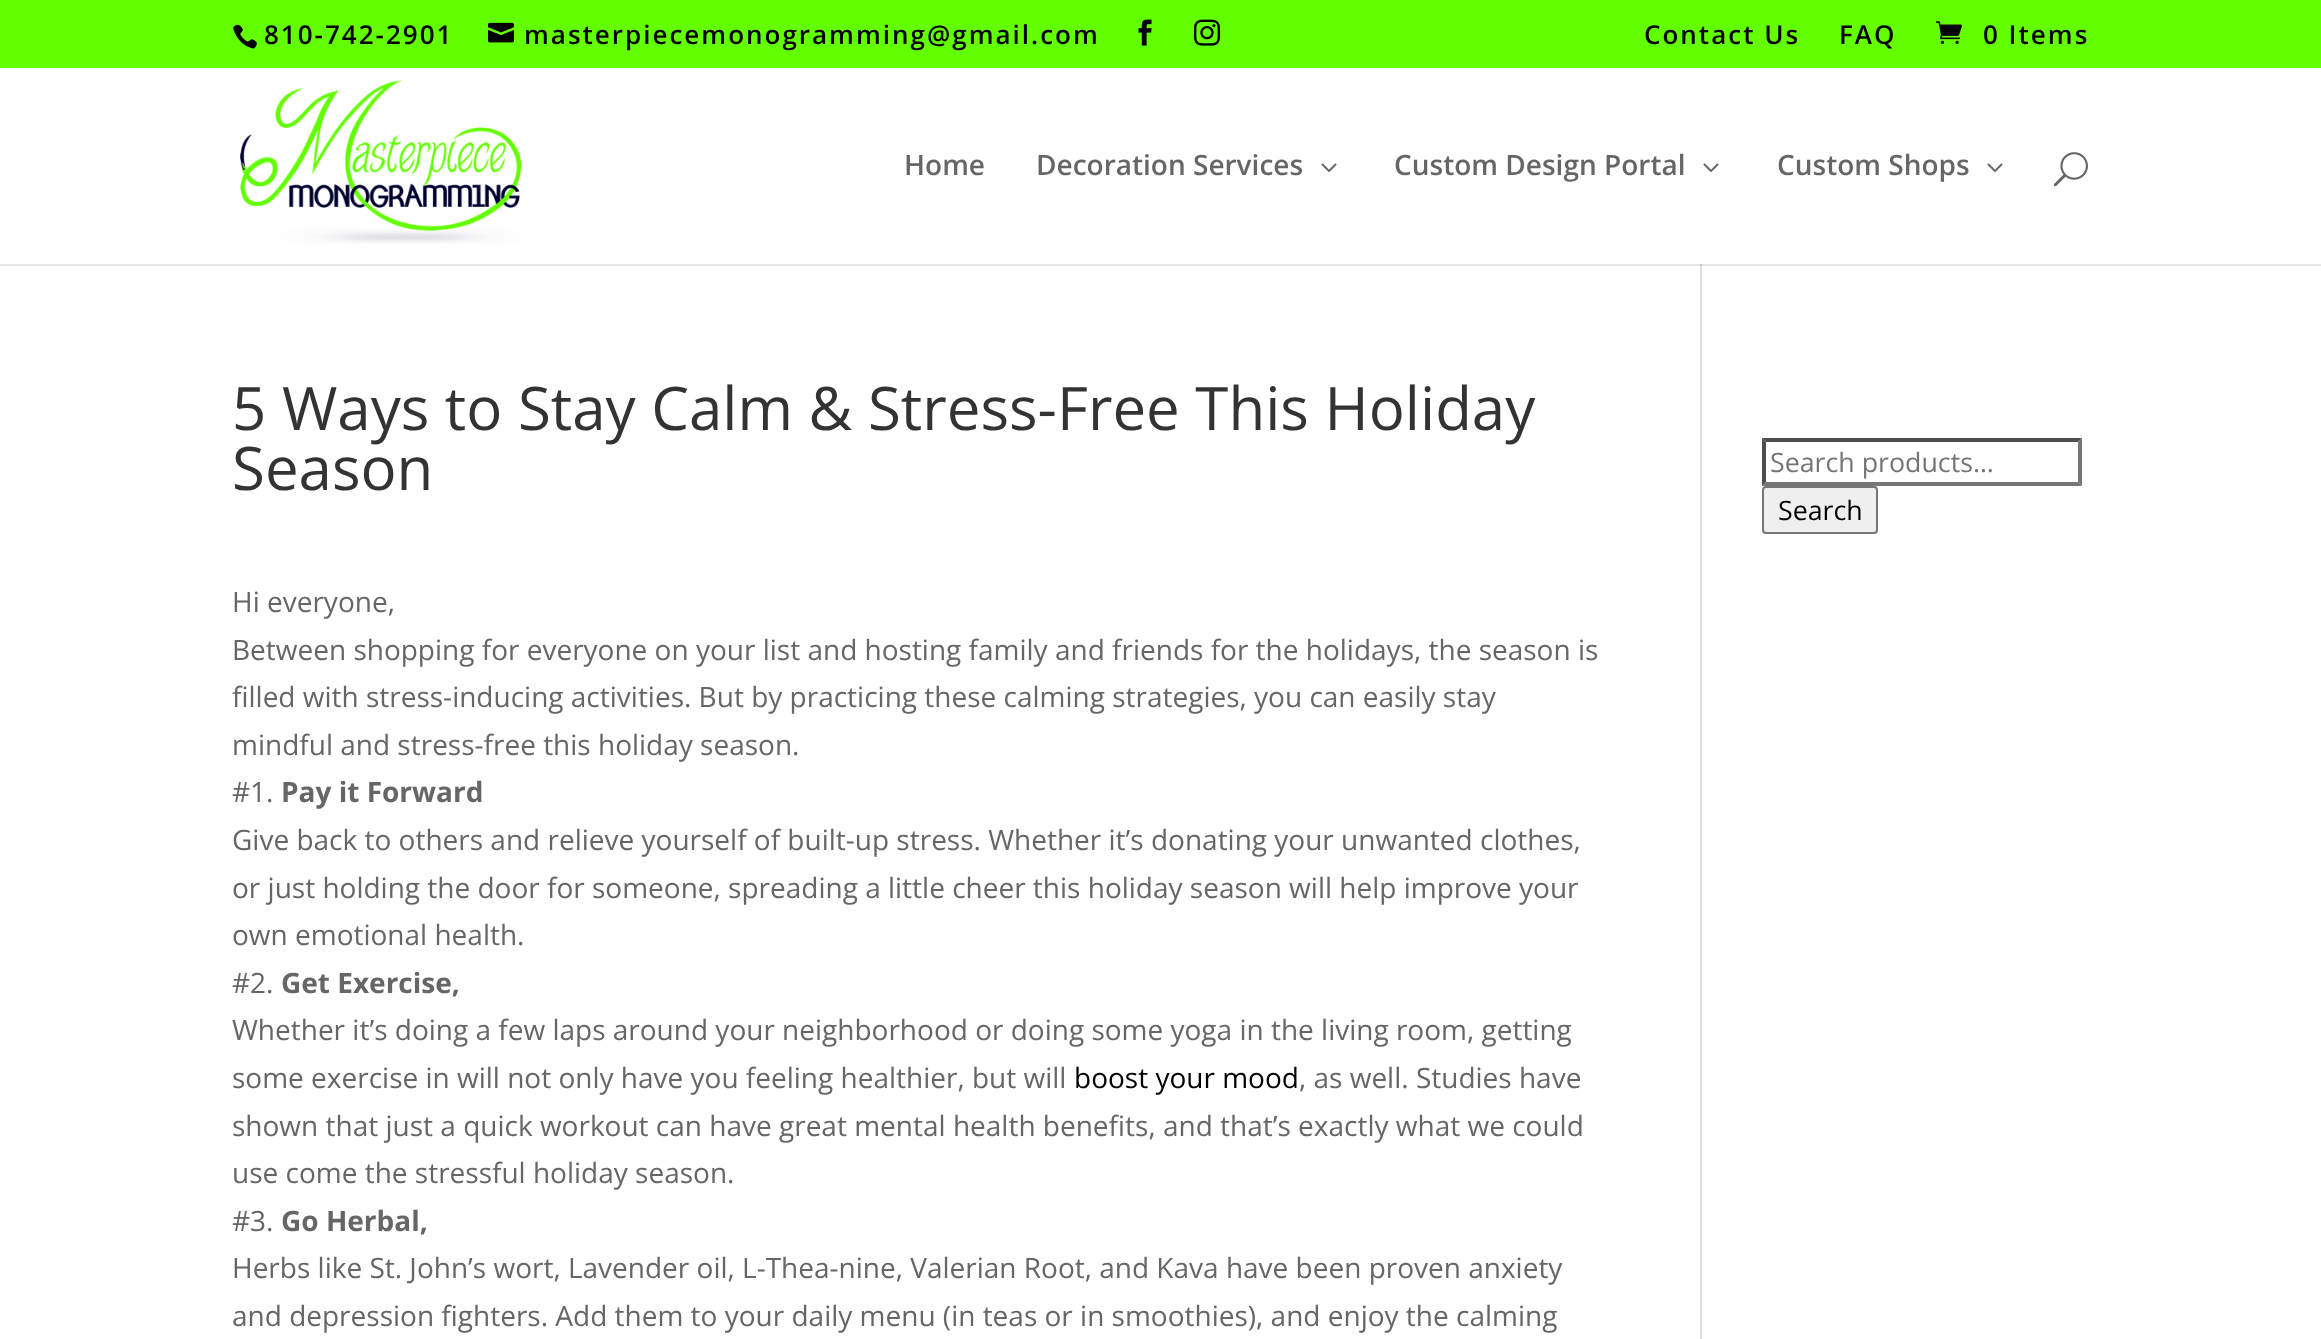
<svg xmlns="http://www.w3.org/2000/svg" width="2321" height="1339">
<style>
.a{font:600 26px Open Sans;letter-spacing:2px;fill:#000}
.b{font:600 28px Open Sans;fill:#666}
.c{font:60px Open Sans;fill:#333}
.d{font:28px Open Sans;fill:#666}
.e{font:bold 28px Open Sans;fill:#666}
.f{font:28px Open Sans;fill:#000}
.g{font:26.75px Open Sans;fill:#757575}
.h{font:26.75px Open Sans;fill:#000}
</style>
<rect width="100%" height="100%" fill="#fff"/>
<path fill="#e6e6e6" d="M0 264h2321v2H0z"/>
<path fill="#63ff00" d="M0 0h2321v68H0z"/>
<image href="1.png" x="233" y="24" width="24" height="25"/>
<image href="2.png" x="488" y="22" width="26" height="21"/>
<image href="3.png" x="1138" y="19" width="14" height="27"/>
<image href="4.png" x="1194" y="19" width="26" height="27"/>
<image href="5.png" x="1936" y="21" width="26" height="23"/>
<path fill="#e2e2e2" d="M1700 262h2v1077H1700z"/>
<path fill="#fff" d="M1700 262h2v2H1700z"/>
<image href="6.png" x="240" y="80" width="282" height="164"/>
<image href="7.png" x="1321" y="163" width="16" height="9"/>
<image href="7.png" x="1703" y="163" width="16" height="9"/>
<image href="7.png" x="1987" y="163" width="16" height="9"/>
<image href="8.png" x="2053" y="152" width="35" height="35"/>
<path fill="#cbcbcb" d="M1700 264h2v2H1700z"/>
<path fill="#4f4f4f" d="M1762 438h320l-4 4h-312z"/>
<path fill="#767676" d="M2082 438v48l-4-4v-40z"/>
<path fill="#767676" d="M2082 486h-320l4-4h312z"/>
<path fill="#4f4f4f" d="M1762 486v-48l4 4v40z"/>
<rect fill="#efefef" stroke="#767676" stroke-width="2" x="1763" y="487" width="114" height="46" rx="3"/>
<text class="a" x="264" y="44">810-742-2901</text>
<text class="a" x="524" y="44">masterpiecemonogramming@gmail.com</text>
<text class="a" x="1644" y="44">Contact Us</text>
<text class="a" x="1839" y="44">FAQ</text>
<text class="a" x="1983" y="44">0 Items</text>
<text class="b" x="904" y="175">Home</text>
<text class="b" x="1036" y="175">Decoration Services</text>
<text class="b" x="1394" y="175">Custom Design Portal</text>
<text class="b" x="1777" y="175">Custom Shops</text>
<text class="c" x="232" y="430">5 Ways to Stay Calm &amp; Stress-Free This Holiday</text>
<text class="c" x="232" y="490">Season</text>
<text class="d" x="232" y="612">Hi everyone,</text>
<text class="d" x="232" y="660">Between shopping for everyone on your list and hosting family and friends for the holidays, the season is</text>
<text class="d" x="232" y="707">filled with stress-inducing activities. But by practicing these calming strategies, you can easily stay</text>
<text class="d" x="232" y="755">mindful and stress-free this holiday season.</text>
<text class="d" x="232" y="802">#1.</text>
<text class="e" x="281" y="802">Pay it Forward</text>
<text class="d" x="232" y="850">Give back to others and relieve yourself of built-up stress. Whether it’s donating your unwanted clothes,</text>
<text class="d" x="232" y="898">or just holding the door for someone, spreading a little cheer this holiday season will help improve your</text>
<text class="d" x="232" y="945">own emotional health.</text>
<text class="d" x="232" y="993">#2.</text>
<text class="e" x="281" y="993">Get Exercise,</text>
<text class="d" x="232" y="1040">Whether it’s doing a few laps around your neighborhood or doing some yoga in the living room, getting</text>
<text class="d" x="232" y="1088">some exercise in will not only have you feeling healthier, but will</text>
<text class="f" x="1074" y="1088">boost your mood</text>
<text class="d" x="1299" y="1088">, as well. Studies have</text>
<text class="d" x="232" y="1136">shown that just a quick workout can have great mental health benefits, and that’s exactly what we could</text>
<text class="d" x="232" y="1183">use come the stressful holiday season.</text>
<text class="d" x="232" y="1231">#3.</text>
<text class="e" x="281" y="1231">Go Herbal,</text>
<text class="d" x="232" y="1278">Herbs like St. John’s wort, Lavender oil, L-Thea-nine, Valerian Root, and Kava have been proven anxiety</text>
<text class="d" x="232" y="1326">and depression fighters. Add them to your daily menu (in teas or in smoothies), and enjoy the calming</text>
<text class="g" x="1770" y="472">Search products…</text>
<text class="h" x="1778" y="520">Search</text>
</svg>
